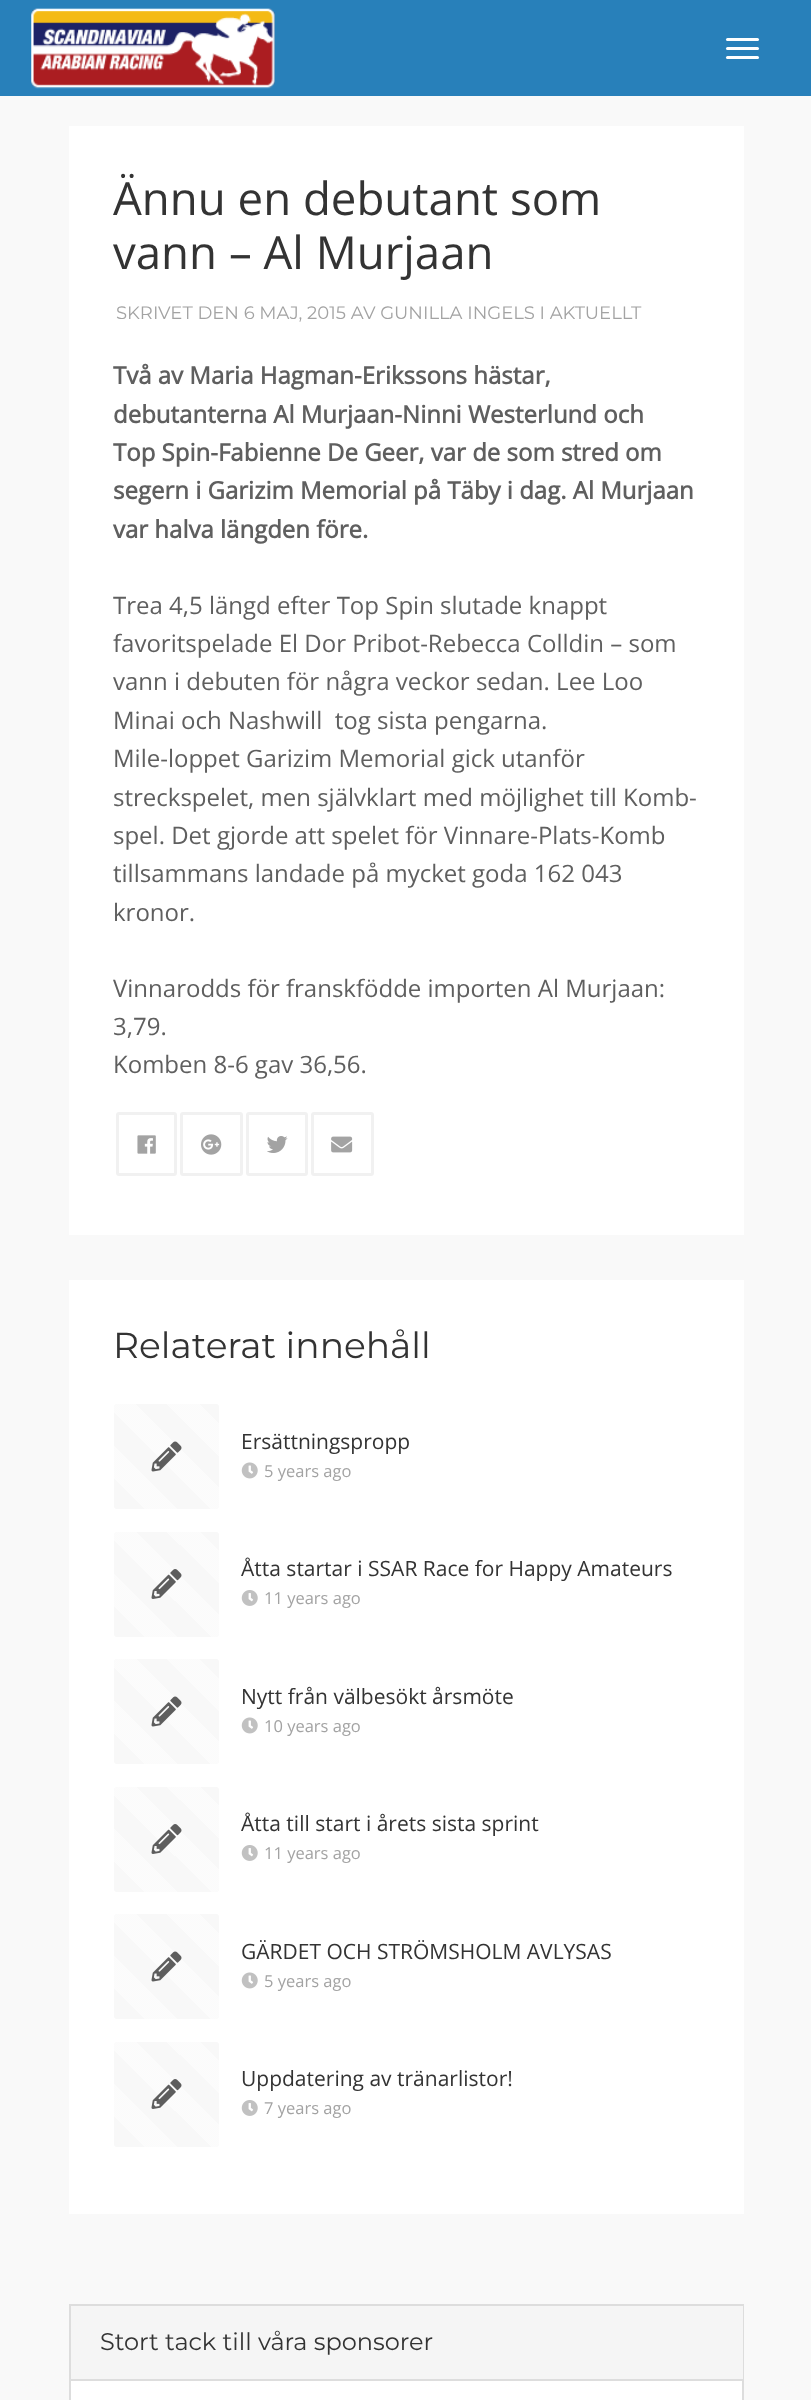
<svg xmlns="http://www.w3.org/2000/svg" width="811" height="2400">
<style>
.a{font:45.6px Open Sans;fill:#333}
.b{font:100 18px Montserrat;fill:#a3a3a3}
.c{font:bold 24px Open Sans;fill:#5f5f5f}
.d{font:24px Open Sans;fill:#5f5f5f}
.e{font:100 36px Montserrat;fill:#333}
.f{font:21px Open Sans;fill:#333}
.g{font:16.5px Open Sans;fill:#a3a3a3}
.h{font:100 24px Montserrat;fill:#333}
</style>
<defs>
<linearGradient id="g1" gradientUnits="userSpaceOnUse" x1="114" y1="1509" x2="241" y2="1382"><stop offset="0" stop-color="#000" stop-opacity="0"/><stop offset="0.12" stop-color="#fff" stop-opacity="0"/><stop offset="0.12" stop-color="#fff" stop-opacity="0.5"/><stop offset="0.25" stop-color="#fff" stop-opacity="0.5"/><stop offset="0.25" stop-color="#fff" stop-opacity="0"/><stop offset="0.38" stop-color="#fff" stop-opacity="0"/><stop offset="0.38" stop-color="#fff" stop-opacity="0.5"/><stop offset="0.5" stop-color="#fff" stop-opacity="0.5"/><stop offset="0.5" stop-color="#fff" stop-opacity="0"/><stop offset="0.62" stop-color="#fff" stop-opacity="0"/><stop offset="0.62" stop-color="#fff" stop-opacity="0.5"/><stop offset="0.75" stop-color="#fff" stop-opacity="0.5"/><stop offset="0.75" stop-color="#fff" stop-opacity="0"/><stop offset="0.88" stop-color="#fff" stop-opacity="0"/><stop offset="0.88" stop-color="#fff" stop-opacity="0.5"/><stop offset="1" stop-color="#fff" stop-opacity="0.5"/></linearGradient>
<linearGradient id="g2" gradientUnits="userSpaceOnUse" x1="114" y1="1637" x2="241" y2="1509"><stop offset="0" stop-color="#000" stop-opacity="0"/><stop offset="0.12" stop-color="#fff" stop-opacity="0"/><stop offset="0.12" stop-color="#fff" stop-opacity="0.5"/><stop offset="0.25" stop-color="#fff" stop-opacity="0.5"/><stop offset="0.25" stop-color="#fff" stop-opacity="0"/><stop offset="0.38" stop-color="#fff" stop-opacity="0"/><stop offset="0.38" stop-color="#fff" stop-opacity="0.5"/><stop offset="0.5" stop-color="#fff" stop-opacity="0.5"/><stop offset="0.5" stop-color="#fff" stop-opacity="0"/><stop offset="0.62" stop-color="#fff" stop-opacity="0"/><stop offset="0.62" stop-color="#fff" stop-opacity="0.5"/><stop offset="0.75" stop-color="#fff" stop-opacity="0.5"/><stop offset="0.75" stop-color="#fff" stop-opacity="0"/><stop offset="0.88" stop-color="#fff" stop-opacity="0"/><stop offset="0.88" stop-color="#fff" stop-opacity="0.5"/><stop offset="1" stop-color="#fff" stop-opacity="0.5"/></linearGradient>
<linearGradient id="g3" gradientUnits="userSpaceOnUse" x1="114" y1="1764" x2="241" y2="1637"><stop offset="0" stop-color="#000" stop-opacity="0"/><stop offset="0.12" stop-color="#fff" stop-opacity="0"/><stop offset="0.12" stop-color="#fff" stop-opacity="0.5"/><stop offset="0.25" stop-color="#fff" stop-opacity="0.5"/><stop offset="0.25" stop-color="#fff" stop-opacity="0"/><stop offset="0.38" stop-color="#fff" stop-opacity="0"/><stop offset="0.38" stop-color="#fff" stop-opacity="0.5"/><stop offset="0.5" stop-color="#fff" stop-opacity="0.5"/><stop offset="0.5" stop-color="#fff" stop-opacity="0"/><stop offset="0.62" stop-color="#fff" stop-opacity="0"/><stop offset="0.62" stop-color="#fff" stop-opacity="0.5"/><stop offset="0.75" stop-color="#fff" stop-opacity="0.5"/><stop offset="0.75" stop-color="#fff" stop-opacity="0"/><stop offset="0.88" stop-color="#fff" stop-opacity="0"/><stop offset="0.88" stop-color="#fff" stop-opacity="0.5"/><stop offset="1" stop-color="#fff" stop-opacity="0.5"/></linearGradient>
<linearGradient id="g4" gradientUnits="userSpaceOnUse" x1="114" y1="1892" x2="241" y2="1764"><stop offset="0" stop-color="#000" stop-opacity="0"/><stop offset="0.12" stop-color="#fff" stop-opacity="0"/><stop offset="0.12" stop-color="#fff" stop-opacity="0.5"/><stop offset="0.25" stop-color="#fff" stop-opacity="0.5"/><stop offset="0.25" stop-color="#fff" stop-opacity="0"/><stop offset="0.38" stop-color="#fff" stop-opacity="0"/><stop offset="0.38" stop-color="#fff" stop-opacity="0.5"/><stop offset="0.5" stop-color="#fff" stop-opacity="0.5"/><stop offset="0.5" stop-color="#fff" stop-opacity="0"/><stop offset="0.62" stop-color="#fff" stop-opacity="0"/><stop offset="0.62" stop-color="#fff" stop-opacity="0.5"/><stop offset="0.75" stop-color="#fff" stop-opacity="0.5"/><stop offset="0.75" stop-color="#fff" stop-opacity="0"/><stop offset="0.88" stop-color="#fff" stop-opacity="0"/><stop offset="0.88" stop-color="#fff" stop-opacity="0.5"/><stop offset="1" stop-color="#fff" stop-opacity="0.5"/></linearGradient>
<linearGradient id="g5" gradientUnits="userSpaceOnUse" x1="114" y1="2019" x2="241" y2="1892"><stop offset="0" stop-color="#000" stop-opacity="0"/><stop offset="0.12" stop-color="#fff" stop-opacity="0"/><stop offset="0.12" stop-color="#fff" stop-opacity="0.5"/><stop offset="0.25" stop-color="#fff" stop-opacity="0.5"/><stop offset="0.25" stop-color="#fff" stop-opacity="0"/><stop offset="0.38" stop-color="#fff" stop-opacity="0"/><stop offset="0.38" stop-color="#fff" stop-opacity="0.5"/><stop offset="0.5" stop-color="#fff" stop-opacity="0.5"/><stop offset="0.5" stop-color="#fff" stop-opacity="0"/><stop offset="0.62" stop-color="#fff" stop-opacity="0"/><stop offset="0.62" stop-color="#fff" stop-opacity="0.5"/><stop offset="0.75" stop-color="#fff" stop-opacity="0.5"/><stop offset="0.75" stop-color="#fff" stop-opacity="0"/><stop offset="0.88" stop-color="#fff" stop-opacity="0"/><stop offset="0.88" stop-color="#fff" stop-opacity="0.5"/><stop offset="1" stop-color="#fff" stop-opacity="0.5"/></linearGradient>
<linearGradient id="g6" gradientUnits="userSpaceOnUse" x1="114" y1="2147" x2="241" y2="2019"><stop offset="0" stop-color="#000" stop-opacity="0"/><stop offset="0.12" stop-color="#fff" stop-opacity="0"/><stop offset="0.12" stop-color="#fff" stop-opacity="0.5"/><stop offset="0.25" stop-color="#fff" stop-opacity="0.5"/><stop offset="0.25" stop-color="#fff" stop-opacity="0"/><stop offset="0.38" stop-color="#fff" stop-opacity="0"/><stop offset="0.38" stop-color="#fff" stop-opacity="0.5"/><stop offset="0.5" stop-color="#fff" stop-opacity="0.5"/><stop offset="0.5" stop-color="#fff" stop-opacity="0"/><stop offset="0.62" stop-color="#fff" stop-opacity="0"/><stop offset="0.62" stop-color="#fff" stop-opacity="0.5"/><stop offset="0.75" stop-color="#fff" stop-opacity="0.5"/><stop offset="0.75" stop-color="#fff" stop-opacity="0"/><stop offset="0.88" stop-color="#fff" stop-opacity="0"/><stop offset="0.88" stop-color="#fff" stop-opacity="0.5"/><stop offset="1" stop-color="#fff" stop-opacity="0.5"/></linearGradient>
</defs>
<rect width="100%" height="100%" fill="#f9f9f9"/>
<path fill="#2880ba" d="M0 0h811v96H0z"/>
<image href="1.png" x="31" y="8" width="244" height="81"/>
<rect fill="#fff" x="726" y="38" width="33" height="3" rx="1.5"/>
<rect fill="#fff" x="726" y="47" width="33" height="3" rx="1.5"/>
<rect fill="#fff" x="726" y="56" width="33" height="3" rx="1.5"/>
<path fill="#fff" d="M69 126h675v1109H69z"/>
<rect fill="none" stroke="#f1f1f1" stroke-width="3" x="117.5" y="1113.5" width="58" height="61" rx="1.5"/>
<image href="2.png" x="137" y="1135" width="19" height="19"/>
<rect fill="none" stroke="#f1f1f1" stroke-width="3" x="181.5" y="1113.5" width="60" height="61" rx="1.5"/>
<image href="3.png" x="201" y="1134" width="21" height="21"/>
<rect fill="none" stroke="#f1f1f1" stroke-width="3" x="247.5" y="1113.5" width="59" height="61" rx="1.5"/>
<image href="4.png" x="267" y="1136" width="21" height="17"/>
<rect fill="none" stroke="#f1f1f1" stroke-width="3" x="312.5" y="1113.5" width="60" height="61" rx="1.5"/>
<image href="5.png" x="331" y="1136" width="22" height="17"/>
<path fill="#fff" d="M69 1280h675v934H69z"/>
<rect fill="#f8f8f8" x="114" y="1404" width="105" height="105" rx="3"/>
<rect fill="url(#g1)" x="114" y="1404" width="105" height="105" rx="3"/>
<image href="6.png" x="151" y="1441" width="31" height="31"/>
<image href="7.png" x="241" y="1462" width="17" height="17"/>
<rect fill="#f8f8f8" x="114" y="1532" width="105" height="105" rx="3"/>
<rect fill="url(#g2)" x="114" y="1532" width="105" height="105" rx="3"/>
<image href="8.png" x="151" y="1569" width="31" height="30"/>
<image href="9.png" x="241" y="1590" width="17" height="16"/>
<rect fill="#f8f8f8" x="114" y="1659" width="105" height="105" rx="3"/>
<rect fill="url(#g3)" x="114" y="1659" width="105" height="105" rx="3"/>
<image href="6.png" x="151" y="1696" width="31" height="31"/>
<image href="7.png" x="241" y="1717" width="17" height="17"/>
<rect fill="#f8f8f8" x="114" y="1787" width="105" height="105" rx="3"/>
<rect fill="url(#g4)" x="114" y="1787" width="105" height="105" rx="3"/>
<image href="8.png" x="151" y="1824" width="31" height="30"/>
<image href="9.png" x="241" y="1845" width="17" height="16"/>
<rect fill="#f8f8f8" x="114" y="1914" width="105" height="105" rx="3"/>
<rect fill="url(#g5)" x="114" y="1914" width="105" height="105" rx="3"/>
<image href="6.png" x="151" y="1951" width="31" height="31"/>
<image href="7.png" x="241" y="1972" width="17" height="17"/>
<rect fill="#f8f8f8" x="114" y="2042" width="105" height="105" rx="3"/>
<rect fill="url(#g6)" x="114" y="2042" width="105" height="105" rx="3"/>
<image href="8.png" x="151" y="2079" width="31" height="30"/>
<image href="9.png" x="241" y="2100" width="17" height="16"/>
<path fill="#fff" d="M71 2381h671v19H71z"/>
<path fill="none" stroke="#ddd" stroke-width="2" d="M70 2305h673v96H70z"/>
<path fill="#f5f5f5" d="M71 2306h672v73H71z"/>
<path fill="#ddd" d="M71 2379h672v2H71z"/>
<text class="a" x="113" y="215">Ännu en debutant som</text>
<text class="a" x="113" y="269">vann – Al Murjaan</text>
<text class="b" x="116" y="319">SKRIVET DEN 6 MAJ, 2015 AV GUNILLA INGELS I AKTUELLT</text>
<text class="c" x="113" y="384">Två av Maria Hagman-Erikssons hästar,</text>
<text class="c" x="113" y="423">debutanterna Al Murjaan-Ninni Westerlund och</text>
<text class="c" x="113" y="461">Top Spin-Fabienne De Geer, var de som stred om</text>
<text class="c" x="113" y="499">segern i Garizim Memorial på Täby i dag. Al Murjaan</text>
<text class="c" x="113" y="538">var halva längden före.</text>
<text class="d" x="113" y="614">Trea 4,5 längd efter Top Spin slutade knappt</text>
<text class="d" x="113" y="652">favoritspelade El Dor Pribot-Rebecca Colldin – som</text>
<text class="d" x="113" y="690">vann i debuten för några veckor sedan. Lee Loo</text>
<text class="d" xml:space="preserve" x="113" y="729">Minai och Nashwill  tog sista pengarna.</text>
<text class="d" x="113" y="767">Mile-loppet Garizim Memorial gick utanför</text>
<text class="d" x="113" y="806">streckspelet, men självklart med möjlighet till Komb-</text>
<text class="d" x="113" y="844">spel. Det gjorde att spelet för Vinnare-Plats-Komb</text>
<text class="d" x="113" y="882">tillsammans landade på mycket goda 162 043</text>
<text class="d" x="113" y="921">kronor.</text>
<text class="d" x="113" y="997">Vinnarodds för franskfödde importen Al Murjaan:</text>
<text class="d" x="113" y="1035">3,79.</text>
<text class="d" x="113" y="1073">Komben 8-6 gav 36,56.</text>
<text class="e" x="113" y="1358">Relaterat innehåll</text>
<text class="f" x="241" y="1449">Ersättningspropp</text>
<text class="g" x="264" y="1477">5 years ago</text>
<text class="f" x="241" y="1576">Åtta startar i SSAR Race for Happy Amateurs</text>
<text class="g" x="264" y="1604">11 years ago</text>
<text class="f" x="241" y="1704">Nytt från välbesökt årsmöte</text>
<text class="g" x="264" y="1732">10 years ago</text>
<text class="f" x="241" y="1831">Åtta till start i årets sista sprint</text>
<text class="g" x="264" y="1859">11 years ago</text>
<text class="f" x="241" y="1959">GÄRDET OCH STRÖMSHOLM AVLYSAS</text>
<text class="g" x="264" y="1987">5 years ago</text>
<text class="f" x="241" y="2086">Uppdatering av tränarlistor!</text>
<text class="g" x="264" y="2114">7 years ago</text>
<text class="h" x="100" y="2350">Stort tack till våra sponsorer</text>
</svg>
